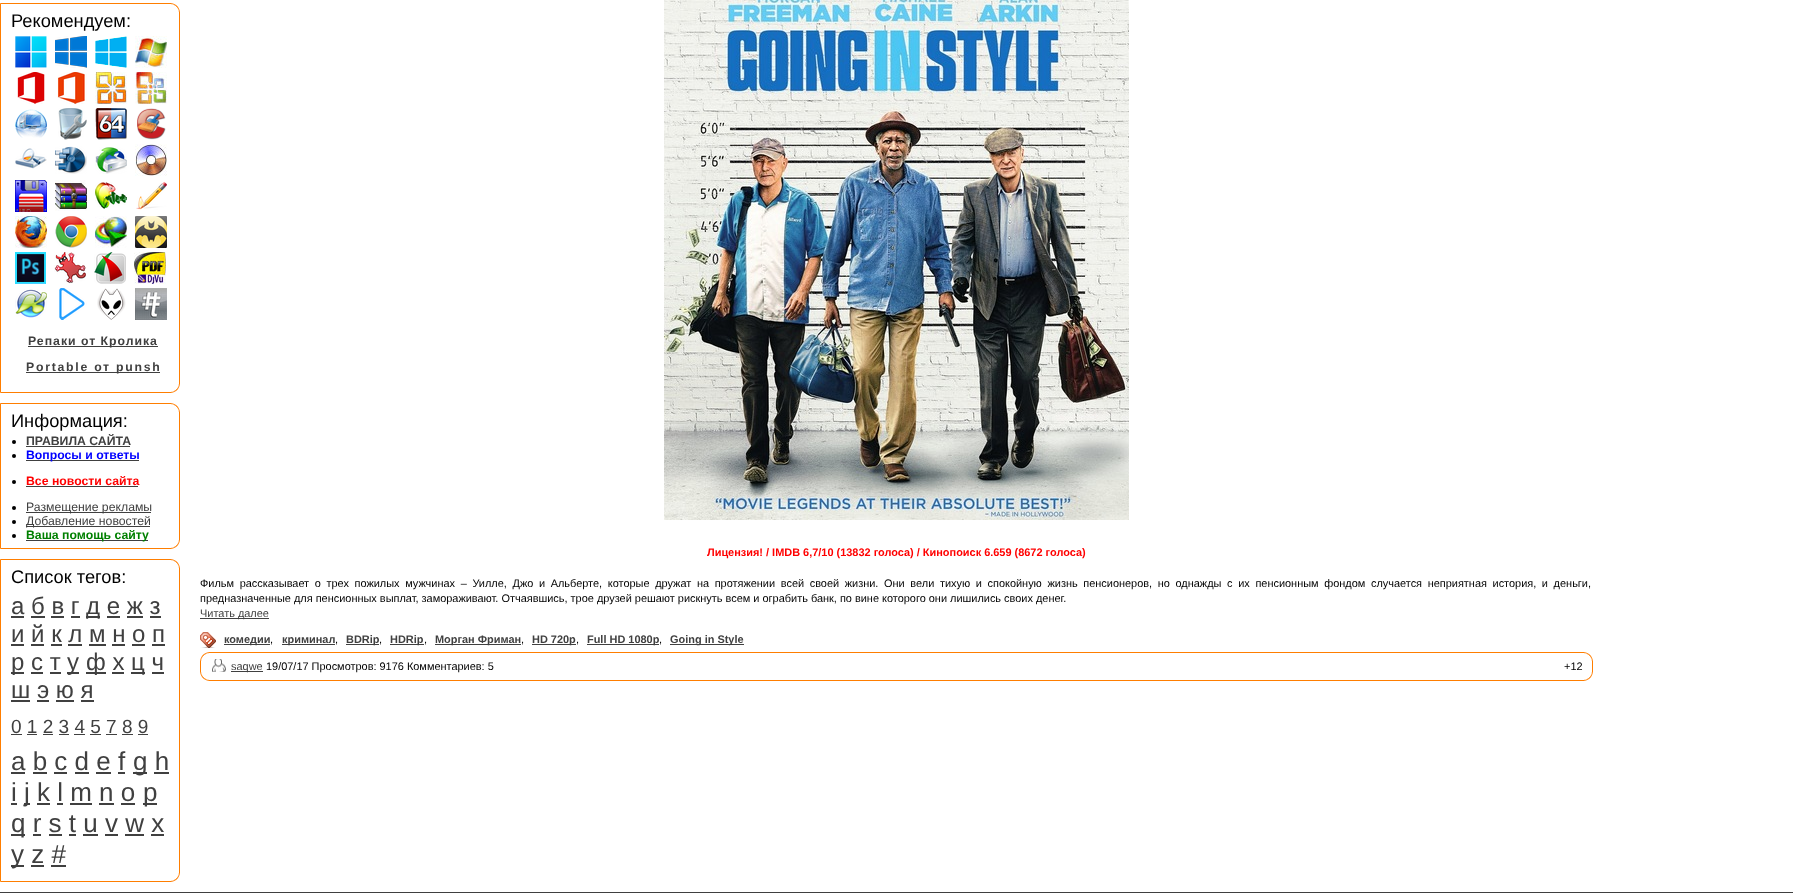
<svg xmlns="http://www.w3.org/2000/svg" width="1793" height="894">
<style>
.a{font:18.25px Liberation Sans;fill:#000}
.b{font:bold 12.25px Liberation Sans;letter-spacing:1px;fill:#404040}
.c{font:bold 12.25px Liberation Sans;letter-spacing:1.75px;fill:#404040}
.d{font:bold 12.25px Liberation Sans;fill:#404040}
.e{font:bold 12.25px Liberation Sans;fill:#00f}
.f{font:bold 12.25px Liberation Sans;fill:#f00}
.g{font:12.25px Liberation Sans;fill:#404040}
.h{font:bold 12.25px Liberation Sans;fill:#008000}
.i{font:24px Liberation Sans;fill:#404040}
.j{font:19px Liberation Sans;fill:#404040}
.k{font:26px Liberation Sans;fill:#404040}
.l{font:bold 10.94px Liberation Sans;fill:#f00}
.m{font:10.94px Liberation Sans;fill:#000}
.n{font:10.94px Liberation Sans;fill:#404040}
.o{font:bold 10.94px Liberation Sans;fill:#404040}
</style>
<rect width="100%" height="100%" fill="#fff"/>
<path fill="none" stroke="#ff7e00" d="M0.5 3.5h179v389H0.5z"/>
<image href="1.png" x="171" y="3" width="9" height="9"/>
<image href="2.png" x="15" y="36" width="32" height="32"/>
<image href="3.png" x="55" y="36" width="32" height="32"/>
<image href="4.png" x="95" y="36" width="32" height="32"/>
<image href="5.png" x="135" y="36" width="32" height="32"/>
<image href="6.png" x="17" y="72" width="28" height="32"/>
<image href="7.png" x="57" y="72" width="30" height="32"/>
<image href="8.png" x="95" y="72" width="32" height="32"/>
<image href="9.png" x="135" y="72" width="32" height="32"/>
<image href="10.png" x="15" y="109" width="32" height="29"/>
<image href="11.png" x="58" y="108" width="29" height="32"/>
<image href="12.png" x="95" y="108" width="32" height="32"/>
<image href="13.png" x="137" y="108" width="29" height="32"/>
<image href="14.png" x="15" y="148" width="32" height="21"/>
<image href="15.png" x="55" y="146" width="32" height="28"/>
<image href="16.png" x="95" y="147" width="32" height="27"/>
<image href="17.png" x="135" y="144" width="32" height="32"/>
<image href="18.png" x="15" y="180" width="32" height="32"/>
<image href="19.png" x="55" y="180" width="32" height="31"/>
<image href="20.png" x="95" y="182" width="32" height="27"/>
<image href="21.png" x="136" y="181" width="31" height="29"/>
<image href="22.png" x="15" y="216" width="32" height="32"/>
<image href="23.png" x="55" y="216" width="32" height="32"/>
<image href="24.png" x="95" y="216" width="32" height="32"/>
<image href="25.png" x="135" y="216" width="32" height="32"/>
<image href="26.png" x="15" y="252" width="31" height="32"/>
<image href="27.png" x="54" y="252" width="32" height="32"/>
<image href="28.png" x="94" y="252" width="32" height="32"/>
<image href="29.png" x="134" y="252" width="32" height="32"/>
<image href="30.png" x="15" y="289" width="32" height="29"/>
<image href="31.png" x="59" y="288" width="28" height="32"/>
<image href="32.png" x="97" y="288" width="29" height="32"/>
<image href="33.png" x="135" y="288" width="32" height="32"/>
<path fill="#404040" d="M28 346h130v1H28z"/>
<path fill="#404040" d="M26 372h134v1H26z"/>
<image href="34.png" x="171" y="384" width="9" height="9"/>
<path fill="none" stroke="#ff7e00" d="M0.5 403.5h179v145H0.5z"/>
<image href="1.png" x="171" y="403" width="9" height="9"/>
<circle fill="#000" cx="14" cy="442" r="2"/>
<path fill="#404040" d="M26 446h104v1H26z"/>
<circle fill="#000" cx="14" cy="456" r="2"/>
<path fill="#404040" d="M26 460h113v1H26z"/>
<circle fill="#000" cx="14" cy="482" r="2"/>
<path fill="#404040" d="M26 486h112v1H26z"/>
<circle fill="#000" cx="14" cy="508" r="2"/>
<path fill="#404040" d="M26 512h125v1H26z"/>
<circle fill="#000" cx="14" cy="522" r="2"/>
<path fill="#404040" d="M26 526h124v1H26z"/>
<circle fill="#000" cx="14" cy="536" r="2"/>
<path fill="#404040" d="M26 540h122v1H26z"/>
<image href="34.png" x="171" y="540" width="9" height="9"/>
<path fill="none" stroke="#ff7e00" d="M0.5 559.5h179v322H0.5z"/>
<image href="1.png" x="171" y="559" width="9" height="9"/>
<path fill="#404040" d="M11 616h13v2H11z"/>
<path fill="#404040" d="M86 616h14v2H86z"/>
<path fill="#404040" d="M31 616h14v2H31z"/>
<path fill="#404040" d="M51 616h13v2H51z"/>
<path fill="#404040" d="M71 616h9v2H71z"/>
<path fill="#404040" d="M107 616h13v2H107z"/>
<path fill="#404040" d="M127 616h16v2H127z"/>
<path fill="#404040" d="M150 616h11v2H150z"/>
<path fill="#404040" d="M11 644h13v2H11z"/>
<path fill="#404040" d="M31 644h13v2H31z"/>
<path fill="#404040" d="M51 644h11v2H51z"/>
<path fill="#404040" d="M68 644h14v2H68z"/>
<path fill="#404040" d="M89 644h17v2H89z"/>
<path fill="#404040" d="M112 644h13v2H112z"/>
<path fill="#404040" d="M132 644h13v2H132z"/>
<path fill="#404040" d="M152 644h13v2H152z"/>
<path fill="#404040" d="M11 672h13v2H11z"/>
<path fill="#404040" d="M67 672h12v2H67z"/>
<path fill="#404040" d="M86 672h20v2H86z"/>
<path fill="#404040" d="M131 672h14v2H131z"/>
<path fill="#404040" d="M31 672h12v2H31z"/>
<path fill="#404040" d="M50 672h11v2H50z"/>
<path fill="#404040" d="M112 672h12v2H112z"/>
<path fill="#404040" d="M152 672h12v2H152z"/>
<path fill="#404040" d="M11 700h19v2H11z"/>
<path fill="#404040" d="M37 700h12v2H37z"/>
<path fill="#404040" d="M56 700h18v2H56z"/>
<path fill="#404040" d="M81 700h13v2H81z"/>
<path fill="#404040" d="M11 734h11v1H11z"/>
<path fill="#404040" d="M27 734h10v1H27z"/>
<path fill="#404040" d="M43 734h10v1H43z"/>
<path fill="#404040" d="M59 734h10v1H59z"/>
<path fill="#404040" d="M74 734h11v1H74z"/>
<path fill="#404040" d="M90 734h11v1H90z"/>
<path fill="#404040" d="M106 734h11v1H106z"/>
<path fill="#404040" d="M122 734h11v1H122z"/>
<path fill="#404040" d="M138 734h10v1H138z"/>
<path fill="#404040" d="M11 772h14v2H11z"/>
<path fill="#404040" d="M133 772h14v2H133z"/>
<path fill="#404040" d="M33 772h14v2H33z"/>
<path fill="#404040" d="M54 772h13v2H54z"/>
<path fill="#404040" d="M75 772h14v2H75z"/>
<path fill="#404040" d="M96 772h15v2H96z"/>
<path fill="#404040" d="M118 772h7v2H118z"/>
<path fill="#404040" d="M154 772h15v2H154z"/>
<path fill="#404040" d="M11 803h6v2H11z"/>
<path fill="#404040" d="M24 803h6v2H24z"/>
<path fill="#404040" d="M143 803h14v2H143z"/>
<path fill="#404040" d="M37 803h13v2H37z"/>
<path fill="#404040" d="M57 803h6v2H57z"/>
<path fill="#404040" d="M70 803h22v2H70z"/>
<path fill="#404040" d="M99 803h15v2H99z"/>
<path fill="#404040" d="M121 803h14v2H121z"/>
<path fill="#404040" d="M11 834h14v2H11z"/>
<path fill="#404040" d="M33 834h8v2H33z"/>
<path fill="#404040" d="M49 834h13v2H49z"/>
<path fill="#404040" d="M69 834h7v2H69z"/>
<path fill="#404040" d="M83 834h15v2H83z"/>
<path fill="#404040" d="M105 834h13v2H105z"/>
<path fill="#404040" d="M125 834h19v2H125z"/>
<path fill="#404040" d="M151 834h13v2H151z"/>
<path fill="#404040" d="M11 865h13v2H11z"/>
<path fill="#404040" d="M31 865h13v2H31z"/>
<path fill="#404040" d="M51 865h15v2H51z"/>
<image href="34.png" x="171" y="873" width="9" height="9"/>
<image href="35.png" x="664" y="0" width="465" height="520"/>
<path fill="#404040" d="M200 618h69v1H200z"/>
<image href="36.png" x="200" y="632" width="16" height="16"/>
<path fill="#404040" d="M224 644h46v1H224z"/>
<path fill="#404040" d="M282 644h53v1H282z"/>
<path fill="#404040" d="M346 644h33v1H346z"/>
<path fill="#404040" d="M390 644h34v1H390z"/>
<path fill="#404040" d="M435 644h86v1H435z"/>
<path fill="#404040" d="M532 644h44v1H532z"/>
<path fill="#404040" d="M587 644h72v1H587z"/>
<path fill="#404040" d="M670 644h74v1H670z"/>
<path fill="none" stroke="#ff7e00" d="M200.5 652.5h1392v28H200.5z"/>
<image href="37.png" x="200" y="652" width="9" height="9"/>
<image href="1.png" x="1584" y="652" width="9" height="9"/>
<image href="38.png" x="212" y="659" width="14" height="13"/>
<path fill="#404040" d="M231 671h32v1H231z"/>
<image href="39.png" x="200" y="672" width="9" height="9"/>
<image href="34.png" x="1584" y="672" width="9" height="9"/>
<path fill="#404040" d="M0 892h1793v1H0z"/>
<text class="a" x="11" y="27">Рекомендуем:</text>
<text class="b" x="28" y="345">Репаки от Кролика</text>
<text class="c" x="26" y="371">Portable от punsh</text>
<text class="a" x="11" y="427">Информация:</text>
<text class="d" x="26" y="445">ПРАВИЛА САЙТА</text>
<text class="e" x="26" y="459">Вопросы и ответы</text>
<text class="f" x="26" y="485">Все новости сайта</text>
<text class="g" x="26" y="511">Размещение рекламы</text>
<text class="g" x="26" y="525">Добавление новостей</text>
<text class="h" x="26" y="539">Ваша помощь сайту</text>
<text class="a" x="11" y="583">Список тегов:</text>
<text class="i" x="11" y="614">а б в г</text>
<text class="i" x="86" y="614">д е ж з</text>
<text class="i" x="11" y="642">и й к л м н о п</text>
<text class="i" x="11" y="670">р с т</text>
<text class="i" x="67" y="670">у</text>
<text class="i" x="86" y="670">ф х</text>
<text class="i" x="131" y="670">ц ч</text>
<text class="i" x="11" y="698">ш э ю я</text>
<text class="j" x="11" y="733">0 1 2 3 4 5 7 8 9</text>
<text class="k" x="11" y="770">a b c d e f</text>
<text class="k" x="133" y="770">g h</text>
<text class="k" x="11" y="801">i</text>
<text class="k" x="24" y="801">j k l m n o</text>
<text class="k" x="143" y="801">p</text>
<text class="k" x="11" y="832">q r s t u v w x</text>
<text class="k" x="11" y="863">y z #</text>
<text class="l" x="707" y="556">Лицензия! / IMDB 6,7/10 (13832 голоса) / Кинопоиск 6.659 (8672 голоса)</text>
<text class="m" x="200" y="587" word-spacing="2.6">Фильм рассказывает о трех пожилых мужчинах – Уилле, Джо и Альберте, которые дружат на протяжении всей своей жизни. Они вели тихую и спокойную жизнь пенсионеров, но однажды с их пенсионным фондом случается неприятная история, и деньги,</text>
<text class="m" x="200" y="602">предназначенные для пенсионных выплат, замораживают. Отчаявшись, трое друзей решают рискнуть всем и ограбить банк, по вине которого они лишились своих денег.</text>
<text class="n" x="200" y="617">Читать далее</text>
<text class="o" x="224" y="643">комедии</text>
<text class="m" x="270" y="643">,</text>
<text class="o" x="282" y="643">криминал</text>
<text class="m" x="335" y="643">,</text>
<text class="o" x="346" y="643">BDRip</text>
<text class="m" x="379" y="643">,</text>
<text class="o" x="390" y="643">HDRip</text>
<text class="m" x="424" y="643">,</text>
<text class="o" x="435" y="643">Морган Фриман</text>
<text class="m" x="521" y="643">,</text>
<text class="o" x="532" y="643">HD 720p</text>
<text class="m" x="576" y="643">,</text>
<text class="o" x="587" y="643">Full HD 1080p</text>
<text class="m" x="659" y="643">,</text>
<text class="o" x="670" y="643">Going in Style</text>
<text class="n" x="231" y="670">saqwe</text>
<text class="m" x="266" y="670">19/07/17 Просмотров: 9176 Комментариев: 5</text>
<text class="m" x="1564" y="670">+12</text>
</svg>
